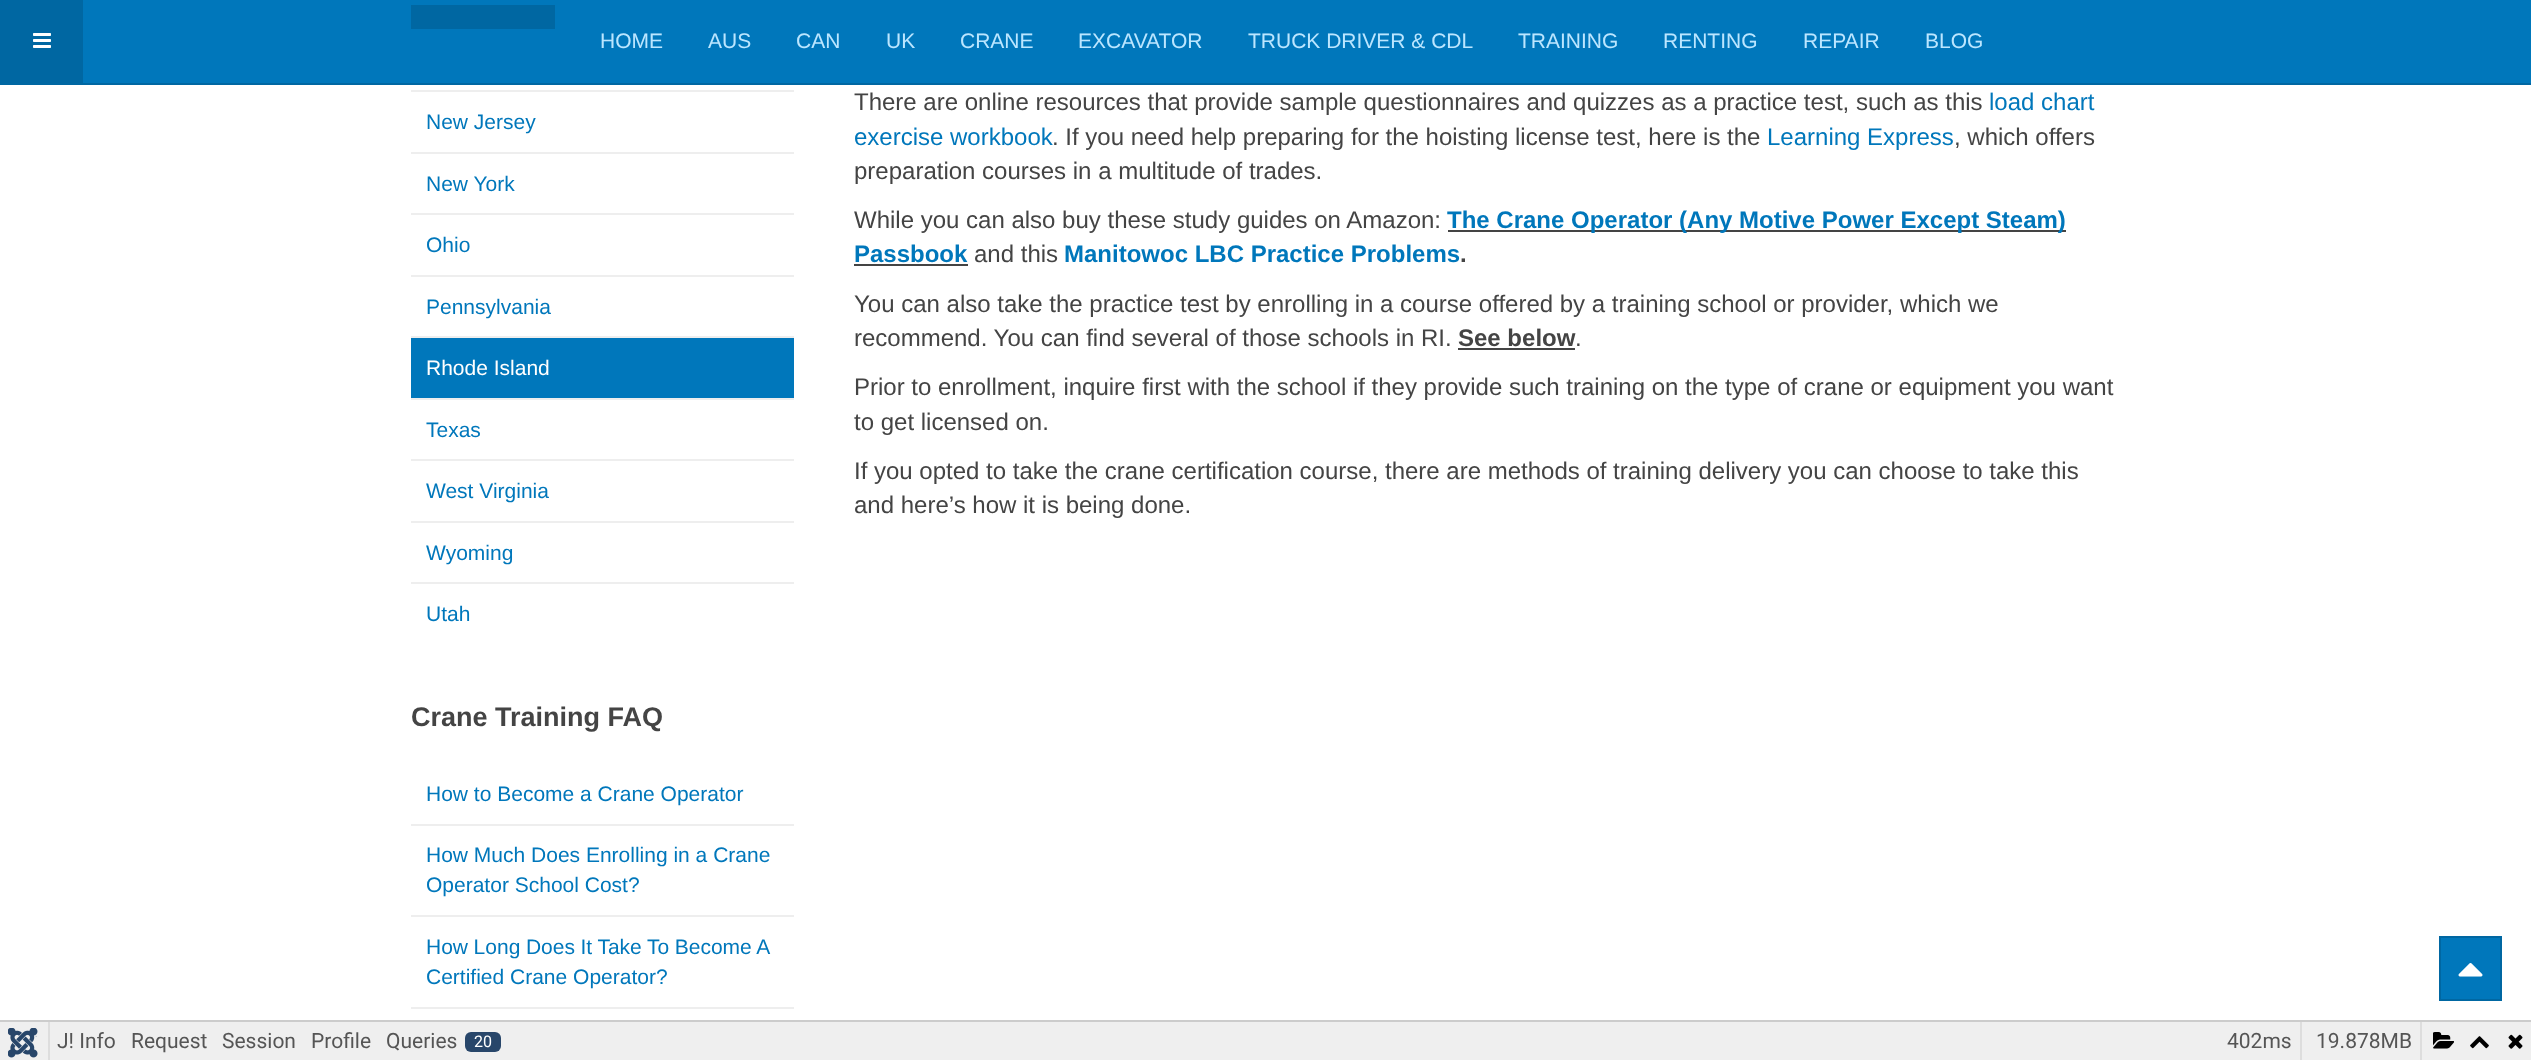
<svg xmlns="http://www.w3.org/2000/svg" width="2531" height="1060">
<style>
.a{font:21px Liberation Sans;fill:#bbe6ff}
.b{font:21px Liberation Sans;fill:#07b}
.c{font:21px Liberation Sans;fill:#fff}
.d{font:bold 27px Liberation Sans;fill:#444}
.e{font:24px Liberation Sans;fill:#444}
.f{font:24px Liberation Sans;fill:#07b}
.g{font:bold 24px Liberation Sans;fill:#07b}
.h{font:bold 24px Liberation Sans;fill:#444}
.i{font:21px Roboto;fill:#555}
.j{font:16px Roboto;fill:#fff}
</style>
<rect width="100%" height="100%" fill="#fff"/>
<path fill="#07b" d="M83 0h2448v83H83z"/>
<path fill="#0067a2" d="M0 83h2531v2H0z"/>
<path fill="#0067a2" d="M0 0h83v83H0z"/>
<image href="1.png" x="33" y="33" width="18" height="15"/>
<path fill="#0067a2" d="M411 5h144v24H411z"/>
<path fill="#eee" d="M411 90h383v2H411z"/>
<path fill="#eee" d="M411 152h383v2H411z"/>
<path fill="#eee" d="M411 213h383v2H411z"/>
<path fill="#eee" d="M411 275h383v2H411z"/>
<path fill="#eee" d="M411 336h383v2H411z"/>
<path fill="#07b" d="M411 338h383v60H411z"/>
<path fill="#eee" d="M411 398h383v2H411z"/>
<path fill="#eee" d="M411 459h383v2H411z"/>
<path fill="#eee" d="M411 521h383v2H411z"/>
<path fill="#eee" d="M411 582h383v2H411z"/>
<path fill="#eee" d="M411 824h383v2H411z"/>
<path fill="#eee" d="M411 915h383v2H411z"/>
<path fill="#eee" d="M411 1007h383v2H411z"/>
<path fill="#444" d="M1448 230h618v2H1448z"/>
<path fill="#444" d="M854 264h114v2H854z"/>
<path fill="#444" d="M1458 348h117v2H1458z"/>
<path fill="#07b" stroke="#0067a2" stroke-width="2" d="M2440 937h61v63H2440z"/>
<image href="2.png" x="2458" y="963" width="25" height="14"/>
<path fill="#ccc" d="M0 1020h2531v2H0z"/>
<path fill="#efefef" d="M50 1022h2481v38H50z"/>
<path fill="#efefef" d="M0 1022h48v38H0z"/>
<image href="3.png" x="8" y="1028" width="30" height="30"/>
<path fill="#ddd" d="M48 1022h2v38H48z"/>
<rect fill="#28466a" x="465" y="1032" width="36" height="20" rx="6"/>
<path fill="#ddd" d="M2300 1022h2v38H2300z"/>
<path fill="#ddd" d="M2420 1022h2v38H2420z"/>
<image href="4.png" x="2433" y="1032" width="21" height="17"/>
<image href="5.png" x="2470" y="1036" width="19" height="13"/>
<image href="6.png" x="2508" y="1034" width="15" height="15"/>
<text class="a" x="600" y="48">HOME</text>
<text class="a" x="708" y="48">AUS</text>
<text class="a" x="796" y="48">CAN</text>
<text class="a" x="886" y="48">UK</text>
<text class="a" x="960" y="48">CRANE</text>
<text class="a" x="1078" y="48">EXCAVATOR</text>
<text class="a" x="1248" y="48">TRUCK DRIVER &amp; CDL</text>
<text class="a" x="1518" y="48">TRAINING</text>
<text class="a" x="1663" y="48">RENTING</text>
<text class="a" x="1803" y="48">REPAIR</text>
<text class="a" x="1925" y="48">BLOG</text>
<text class="b" x="426" y="129">New Jersey</text>
<text class="b" x="426" y="191">New York</text>
<text class="b" x="426" y="252">Ohio</text>
<text class="b" x="426" y="314">Pennsylvania</text>
<text class="c" x="426" y="375">Rhode Island</text>
<text class="b" x="426" y="437">Texas</text>
<text class="b" x="426" y="498">West Virginia</text>
<text class="b" x="426" y="560">Wyoming</text>
<text class="b" x="426" y="621">Utah</text>
<text class="d" x="411" y="726">Crane Training FAQ</text>
<text class="b" x="426" y="801">How to Become a Crane Operator</text>
<text class="b" x="426" y="862">How Much Does Enrolling in a Crane</text>
<text class="b" x="426" y="892">Operator School Cost?</text>
<text class="b" x="426" y="954" word-spacing="-0.25">How Long Does It Take To Become A</text>
<text class="b" x="426" y="984">Certified Crane Operator?</text>
<text class="e" x="854" y="110">There are online resources that provide sample questionnaires and quizzes as a practice test, such as this</text>
<text class="f" x="1989" y="110">load chart</text>
<text class="f" x="854" y="145">exercise workbook</text>
<text class="e" x="1052" y="145">. If you need help preparing for the hoisting license test, here is the</text>
<text class="f" x="1767" y="145">Learning Express</text>
<text class="e" x="1954" y="145">, which offers</text>
<text class="e" x="854" y="179">preparation courses in a multitude of trades.</text>
<text class="e" x="854" y="228">While you can also buy these study guides on Amazon:</text>
<text class="g" x="1447" y="228">The Crane Operator (Any Motive Power Except Steam)</text>
<text class="g" x="854" y="262">Passbook</text>
<text class="e" x="974" y="262">and this</text>
<text class="g" x="1064" y="262">Manitowoc LBC Practice Problems</text>
<text class="h" x="1460" y="262">.</text>
<text class="e" x="854" y="312">You can also take the practice test by enrolling in a course offered by a training school or provider, which we</text>
<text class="e" x="854" y="346">recommend. You can find several of those schools in RI.</text>
<text class="h" x="1458" y="346">See below</text>
<text class="e" x="1575" y="346">.</text>
<text class="e" x="854" y="395">Prior to enrollment, inquire first with the school if they provide such training on the type of crane or equipment you want</text>
<text class="e" x="854" y="430">to get licensed on.</text>
<text class="e" x="854" y="479">If you opted to take the crane certification course, there are methods of training delivery you can choose to take this</text>
<text class="e" x="854" y="513">and here’s how it is being done.</text>
<text class="i" x="57" y="1048">J! Info</text>
<text class="i" x="131" y="1048">Request</text>
<text class="i" x="222" y="1048">Session</text>
<text class="i" x="311" y="1048">Profile</text>
<text class="i" x="386" y="1048">Queries</text>
<text class="j" x="474" y="1047">20</text>
<text class="i" x="2227" y="1048">402ms</text>
<text class="i" x="2316" y="1048">19.878MB</text>
</svg>
